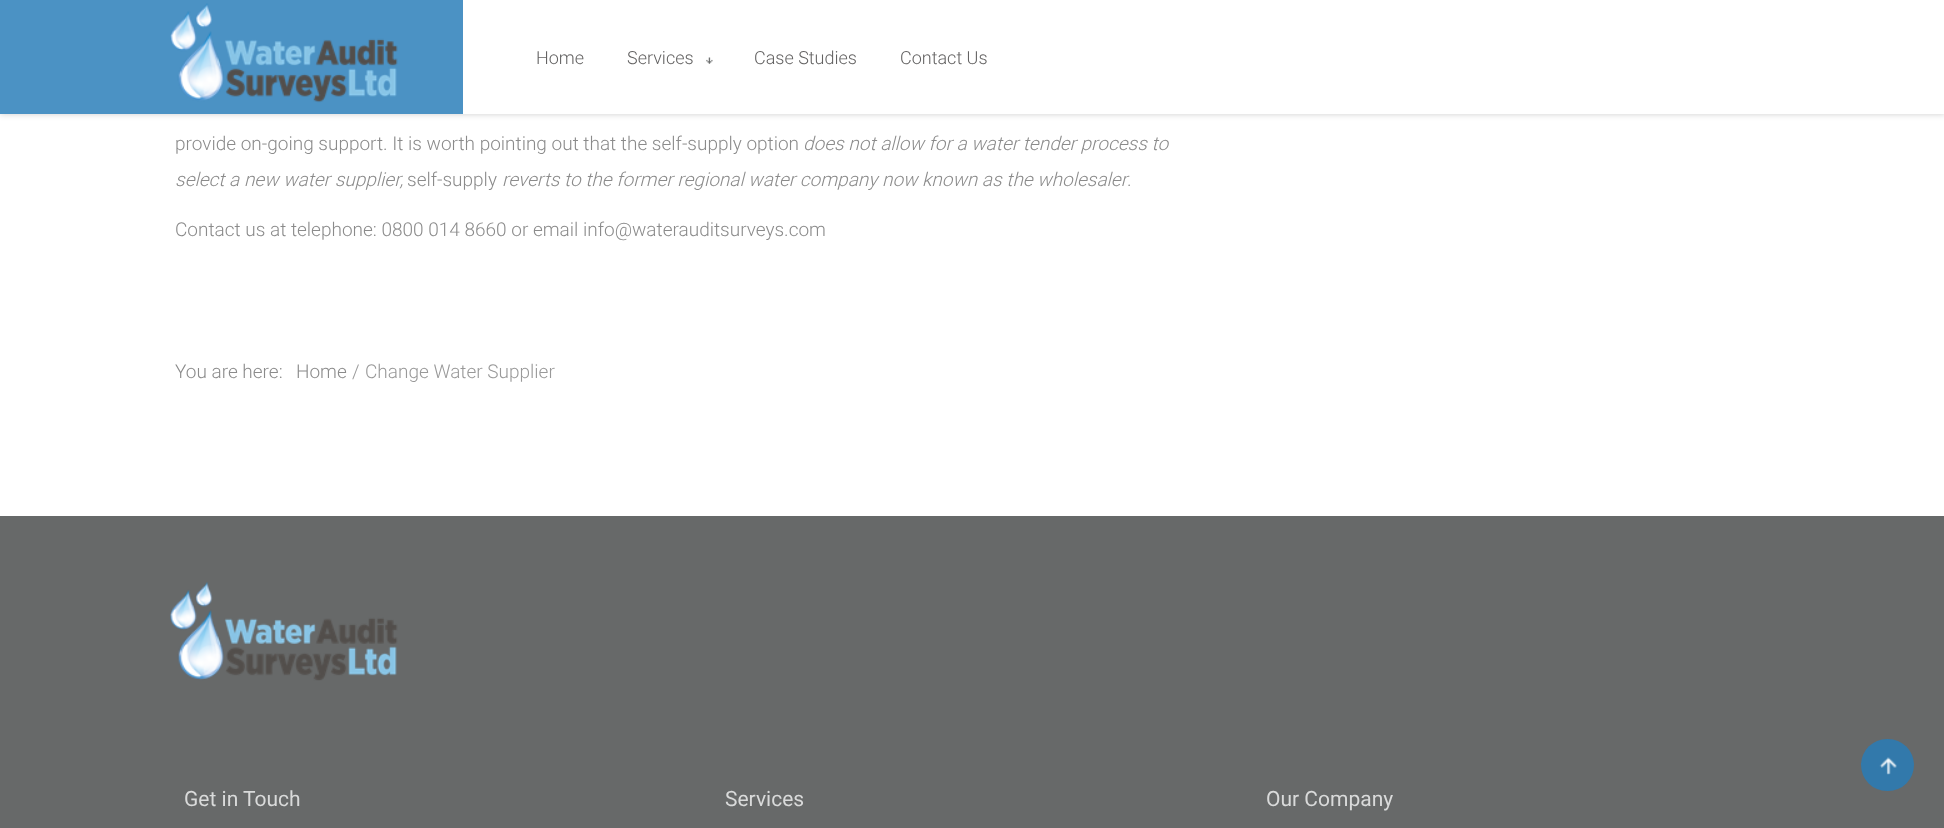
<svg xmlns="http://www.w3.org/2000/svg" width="1944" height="828">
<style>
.a{font:300 18px Roboto;fill:#636262}
.b{font:300 19px Roboto;fill:#8b8b8b}
.c{font:italic 300 19px Roboto;fill:#8b8b8b}
.d{font:300 19px Roboto;fill:#999}
.e{font:21px Roboto;fill:#d9dada}
</style>
<rect width="100%" height="100%" fill="#fff"/>
<path fill="#00000033" filter="blur(3px)" d="M0 0h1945v114H0z"/>
<path fill="#4b92c4" d="M0 0h463v114H0z"/>
<path fill="#fff" d="M463 0h1481v114H463z"/>
<image href="1.png" x="170" y="3" width="228" height="100"/>
<image href="2.png" x="706" y="57" width="7" height="7"/>
<path fill="#676969" d="M0 516h1944v312H0z"/>
<rect fill="#3279ab" x="1861" y="739" width="53" height="52" rx="26"/>
<image href="3.png" x="1879" y="757" width="18" height="18"/>
<image href="4.png" x="170" y="582" width="228" height="99"/>
<text class="a" x="536" y="64">Home</text>
<text class="a" x="627" y="64">Services</text>
<text class="a" x="754" y="64">Case Studies</text>
<text class="a" x="900" y="64">Contact Us</text>
<text class="b" x="175" y="150">provide on-going support. It is worth pointing out that the self-supply option</text>
<text class="c" x="803" y="150">does not allow for a water tender process to</text>
<text class="c" x="175" y="186">select a new water supplier,</text>
<text class="b" x="407" y="186">self-supply</text>
<text class="c" x="502" y="186">reverts to the former regional water company now known as the wholesaler</text>
<text class="b" x="1127" y="186">.</text>
<text class="b" x="175" y="236">Contact us at telephone: 0800 014 8660 or email</text>
<text class="b" x="583" y="236">info@waterauditsurveys.com</text>
<text class="b" x="175" y="378">You are here:</text>
<text class="b" x="296" y="378">Home</text>
<text class="d" x="352" y="378">/</text>
<text class="d" x="365" y="378">Change Water Supplier</text>
<text class="e" x="184" y="806">Get in Touch</text>
<text class="e" x="725" y="806">Services</text>
<text class="e" x="1266" y="806">Our Company</text>
</svg>
